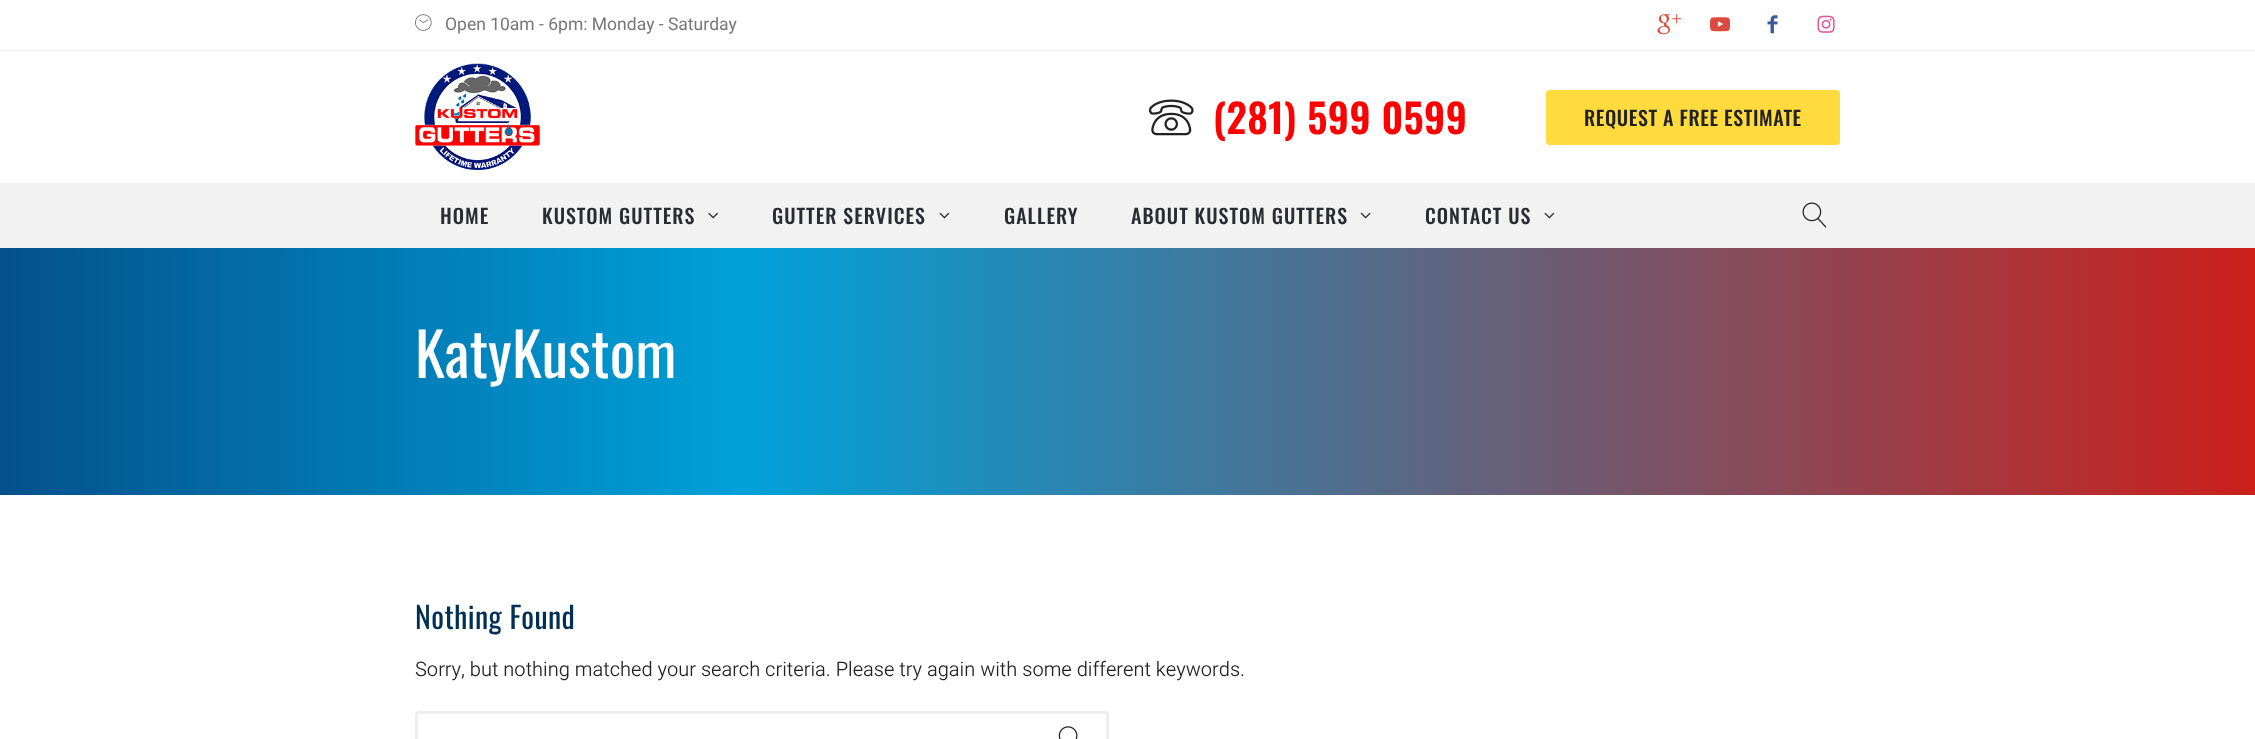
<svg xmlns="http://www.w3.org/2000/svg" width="2255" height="739">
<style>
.a{font:17.5px Heebo;fill:#777}
.b{font:600 40px Oswald;letter-spacing:0.4px;fill:#f00}
.c{font:500 20px Oswald;letter-spacing:0.6px;fill:#222}
.d{font:500 20px Oswald;letter-spacing:1px;fill:#2a2c32}
.e{font:60px Oswald;letter-spacing:0.25px;fill:#fff}
.f{font:30px Oswald;letter-spacing:0.4px;fill:#003056}
.g{font:300 20px Heebo;fill:#222}
</style>
<defs>
<linearGradient id="g1" gradientUnits="userSpaceOnUse" x1="0" y1="371" x2="2255" y2="371"><stop offset="0" stop-color="#04518c"/><stop offset="0.33" stop-color="#00a1d9"/><stop offset="1" stop-color="#cc1f1a"/></linearGradient>
</defs>
<rect width="100%" height="100%" fill="#fff"/>
<path fill="#eee" d="M0 50h2255v1H0z"/>
<image href="1.png" x="415" y="14" width="17" height="17"/>
<image href="2.png" x="1657" y="14" width="25" height="21"/>
<image href="3.png" x="1710" y="17" width="20" height="15"/>
<image href="4.png" x="1767" y="15" width="11" height="19"/>
<image href="5.png" x="1817" y="15" width="18" height="18"/>
<image href="6.png" x="415" y="63" width="125" height="107"/>
<image href="7.png" x="1148" y="99" width="46" height="37"/>
<rect fill="#ffdb3e" x="1546" y="90" width="294" height="55" rx="4"/>
<path fill="#f2f2f2" d="M0 183h2255v65H0z"/>
<image href="8.png" x="708" y="212" width="10" height="7"/>
<image href="9.png" x="939" y="212" width="11" height="7"/>
<image href="10.png" x="1360" y="212" width="11" height="7"/>
<image href="9.png" x="1544" y="212" width="11" height="7"/>
<image href="11.png" x="1802" y="202" width="25" height="26"/>
<path fill="url(#g1)" d="M0 248h2255v247H0z"/>
<rect fill="none" stroke="#eee" stroke-width="3" x="416.5" y="712.5" width="691" height="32" rx="2.5"/>
<image href="12.png" x="1058" y="726" width="20" height="13"/>
<text class="a" x="445" y="30">Open 10am - 6pm: Monday - Saturday</text>
<text class="b" x="1213" y="134">(281) 599 0599</text>
<text class="c" x="1584" y="126">REQUEST A FREE ESTIMATE</text>
<text class="d" x="440" y="224">HOME</text>
<text class="d" x="542" y="224">KUSTOM GUTTERS</text>
<text class="d" x="772" y="224">GUTTER SERVICES</text>
<text class="d" x="1004" y="224">GALLERY</text>
<text class="d" x="1131" y="224">ABOUT KUSTOM GUTTERS</text>
<text class="d" x="1425" y="224">CONTACT US</text>
<text class="e" x="415" y="378">KatyKustom</text>
<text class="f" x="415" y="629">Nothing Found</text>
<text class="g" x="415" y="676">Sorry, but nothing matched your search criteria. Please try again with some different keywords.</text>
</svg>
